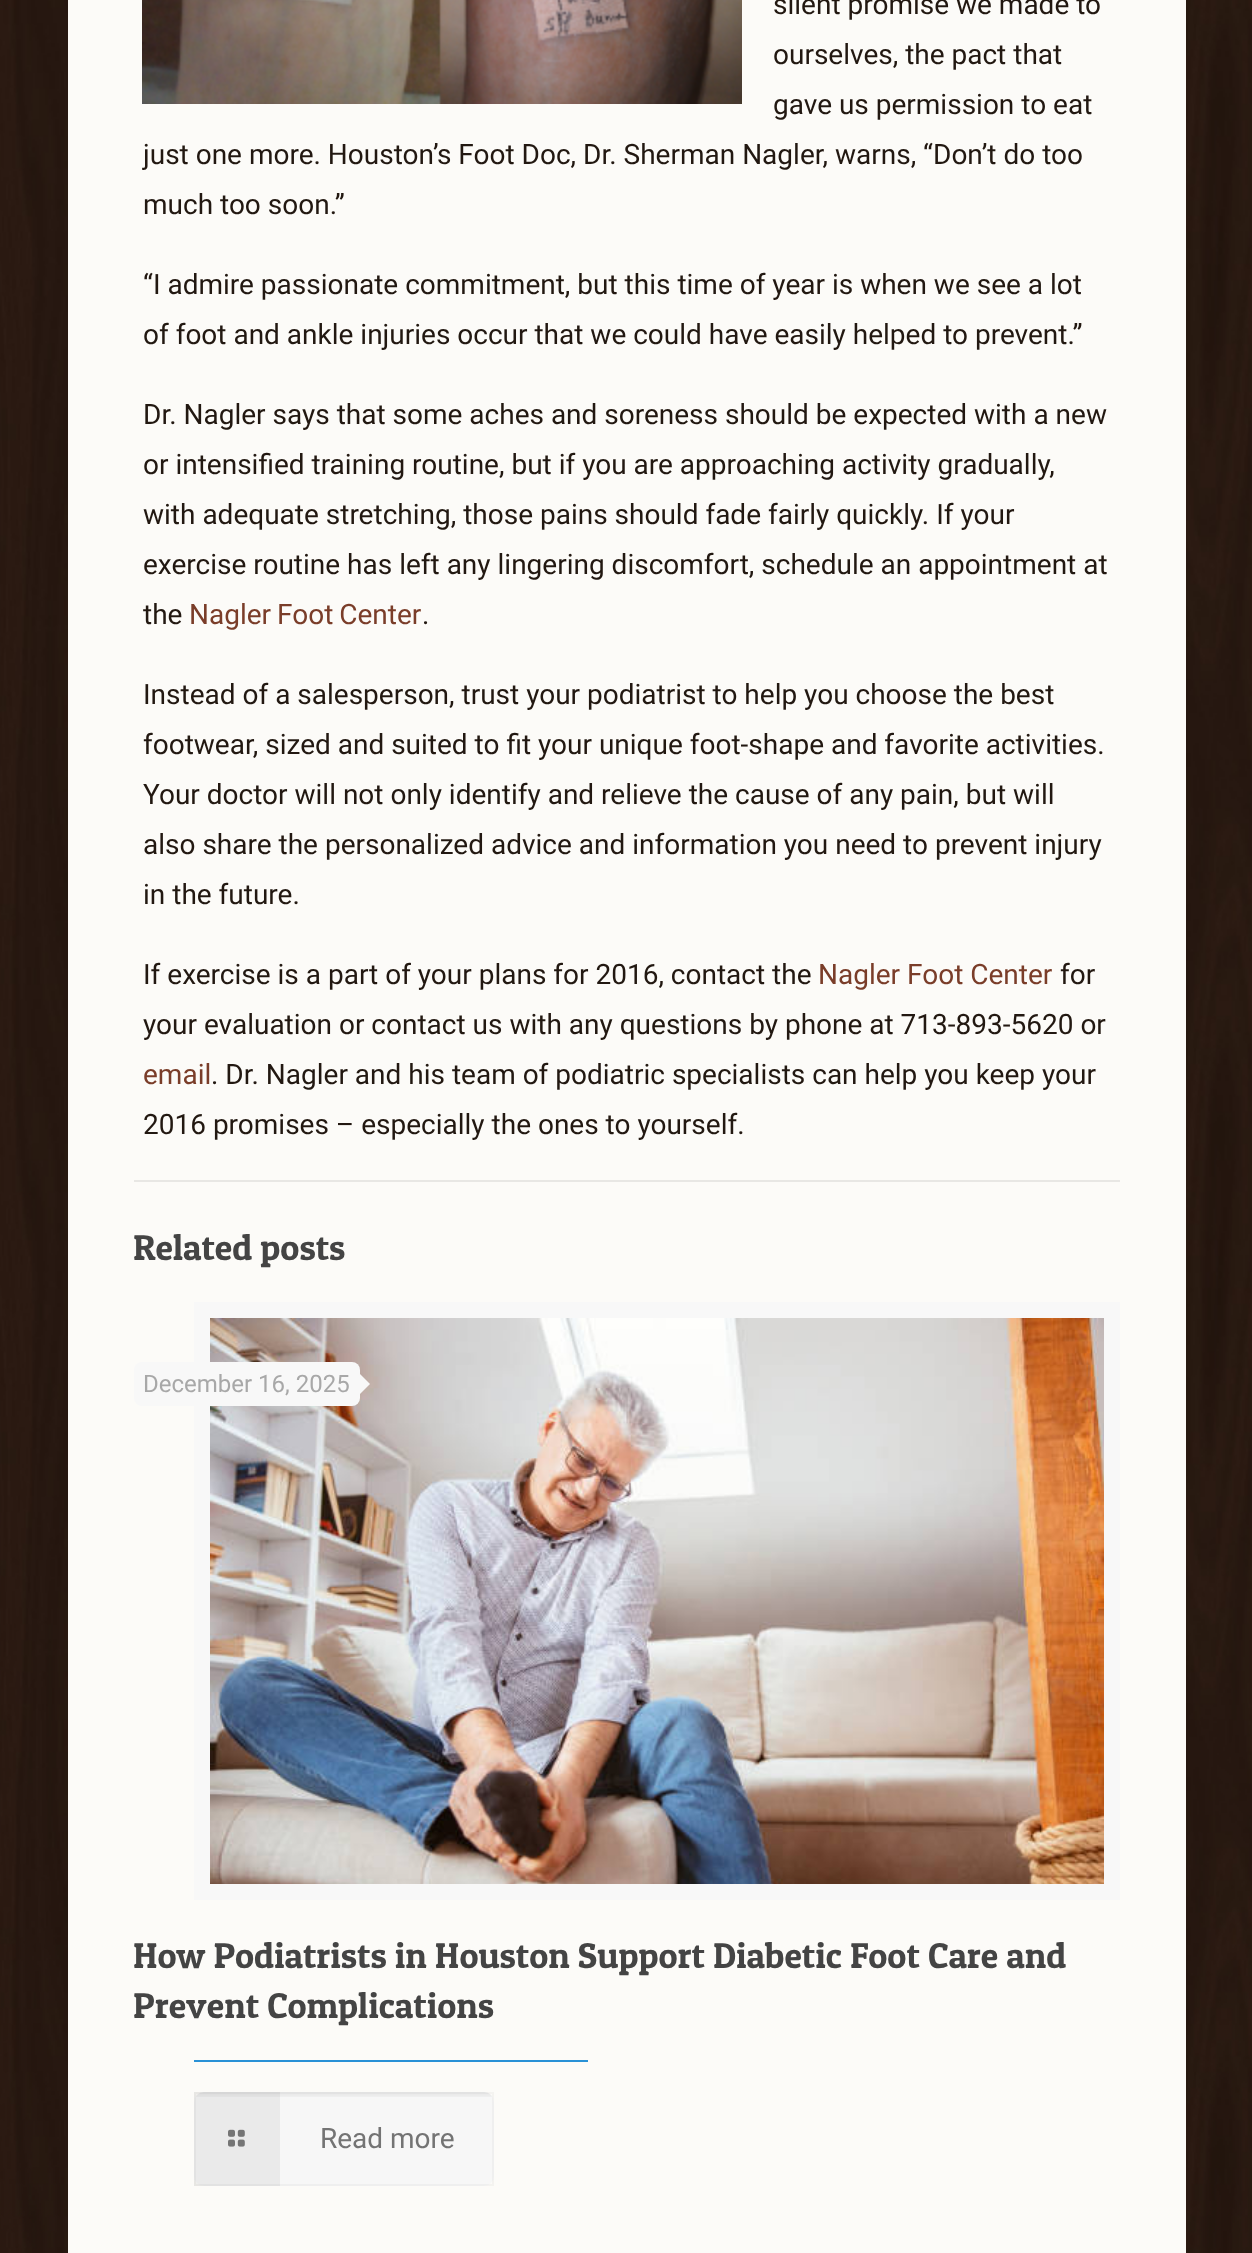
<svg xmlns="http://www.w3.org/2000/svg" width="1252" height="2253">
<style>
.a{font:28px Roboto;fill:#221811}
.b{font:28px Roboto;fill:#7a3d29}
.c{font:36px Patua One;fill:#444}
.d{font:24px Roboto;fill:#a8a8a8}
.e{font:28px Roboto;fill:#747474}
</style>
<rect width="100%" height="100%" fill="#fff"/>
<image href="1.png" x="0" y="0" width="1252" height="2253"/>
<path fill="#fcfbf8" d="M68 0h1118v2253H68z"/>
<image href="2.png" x="142" y="0" width="600" height="104"/>
<path fill="#e8e7e4" d="M134 1180h986v2H134z"/>
<path fill="none" stroke="#f8f8f8" stroke-width="16" d="M202 1310h910v582H202z"/>
<image href="3.png" x="210" y="1318" width="894" height="566"/>
<rect fill="#f8f8f8" x="134" y="1362" width="226" height="44" rx="8"/>
<path fill="#f8f8f8" d="M360 1394v-20l10 10z"/>
<path fill="#2991d6" d="M194 2060h394v2H194z"/>
<rect fill="#f7f7f7" x="194" y="2092" width="300" height="94" rx="10"/>
<image href="4.png" x="196" y="2092" width="296" height="5"/>
<path fill="none" stroke="#00000008" stroke-width="2" d="M195 2093h298v92H195z"/>
<path fill="#0000000d" d="M194 2092h86v94H194z"/>
<image href="5.png" x="228" y="2129" width="17" height="18"/>
<text class="a" x="773" y="14">silent promise we made to</text>
<text class="a" x="773" y="64">ourselves, the pact that</text>
<text class="a" x="773" y="114">gave us permission to eat</text>
<text class="a" x="143" y="164">just one more. Houston’s Foot Doc, Dr. Sherman Nagler, warns, “Don’t do too</text>
<text class="a" x="143" y="214">much too soon.”</text>
<text class="a" x="143" y="294">“I admire passionate commitment, but this time of year is when we see a lot</text>
<text class="a" x="143" y="344">of foot and ankle injuries occur that we could have easily helped to prevent.”</text>
<text class="a" x="143" y="424">Dr. Nagler says that some aches and soreness should be expected with a new</text>
<text class="a" x="143" y="474">or intensified training routine, but if you are approaching activity gradually,</text>
<text class="a" x="143" y="524">with adequate stretching, those pains should fade fairly quickly. If your</text>
<text class="a" x="143" y="574">exercise routine has left any lingering discomfort, schedule an appointment at</text>
<text class="a" x="143" y="624">the</text>
<text class="b" x="189" y="624" word-spacing="-1">Nagler Foot Center</text>
<text class="a" x="422" y="624">.</text>
<text class="a" x="143" y="704">Instead of a salesperson, trust your podiatrist to help you choose the best</text>
<text class="a" x="143" y="754">footwear, sized and suited to fit your unique foot-shape and favorite activities.</text>
<text class="a" x="143" y="804">Your doctor will not only identify and relieve the cause of any pain, but will</text>
<text class="a" x="143" y="854">also share the personalized advice and information you need to prevent injury</text>
<text class="a" x="143" y="904">in the future.</text>
<text class="a" x="143" y="984">If exercise is a part of your plans for 2016, contact the</text>
<text class="b" x="818" y="984">Nagler Foot Center</text>
<text class="a" x="1060" y="984">for</text>
<text class="a" x="143" y="1034">your evaluation or contact us with any questions by phone at 713-893-5620 or</text>
<text class="b" x="143" y="1084">email</text>
<text class="a" x="211" y="1084">. Dr. Nagler and his team of podiatric specialists can help you keep your</text>
<text class="a" x="143" y="1134">2016 promises – especially the ones to yourself.</text>
<text class="c" x="133" y="1260">Related posts</text>
<text class="d" x="143" y="1392">December 16, 2025</text>
<text class="c" x="133" y="1968">How Podiatrists in Houston Support Diabetic Foot Care and</text>
<text class="c" x="133" y="2018">Prevent Complications</text>
<text class="e" x="320" y="2148">Read more</text>
</svg>
